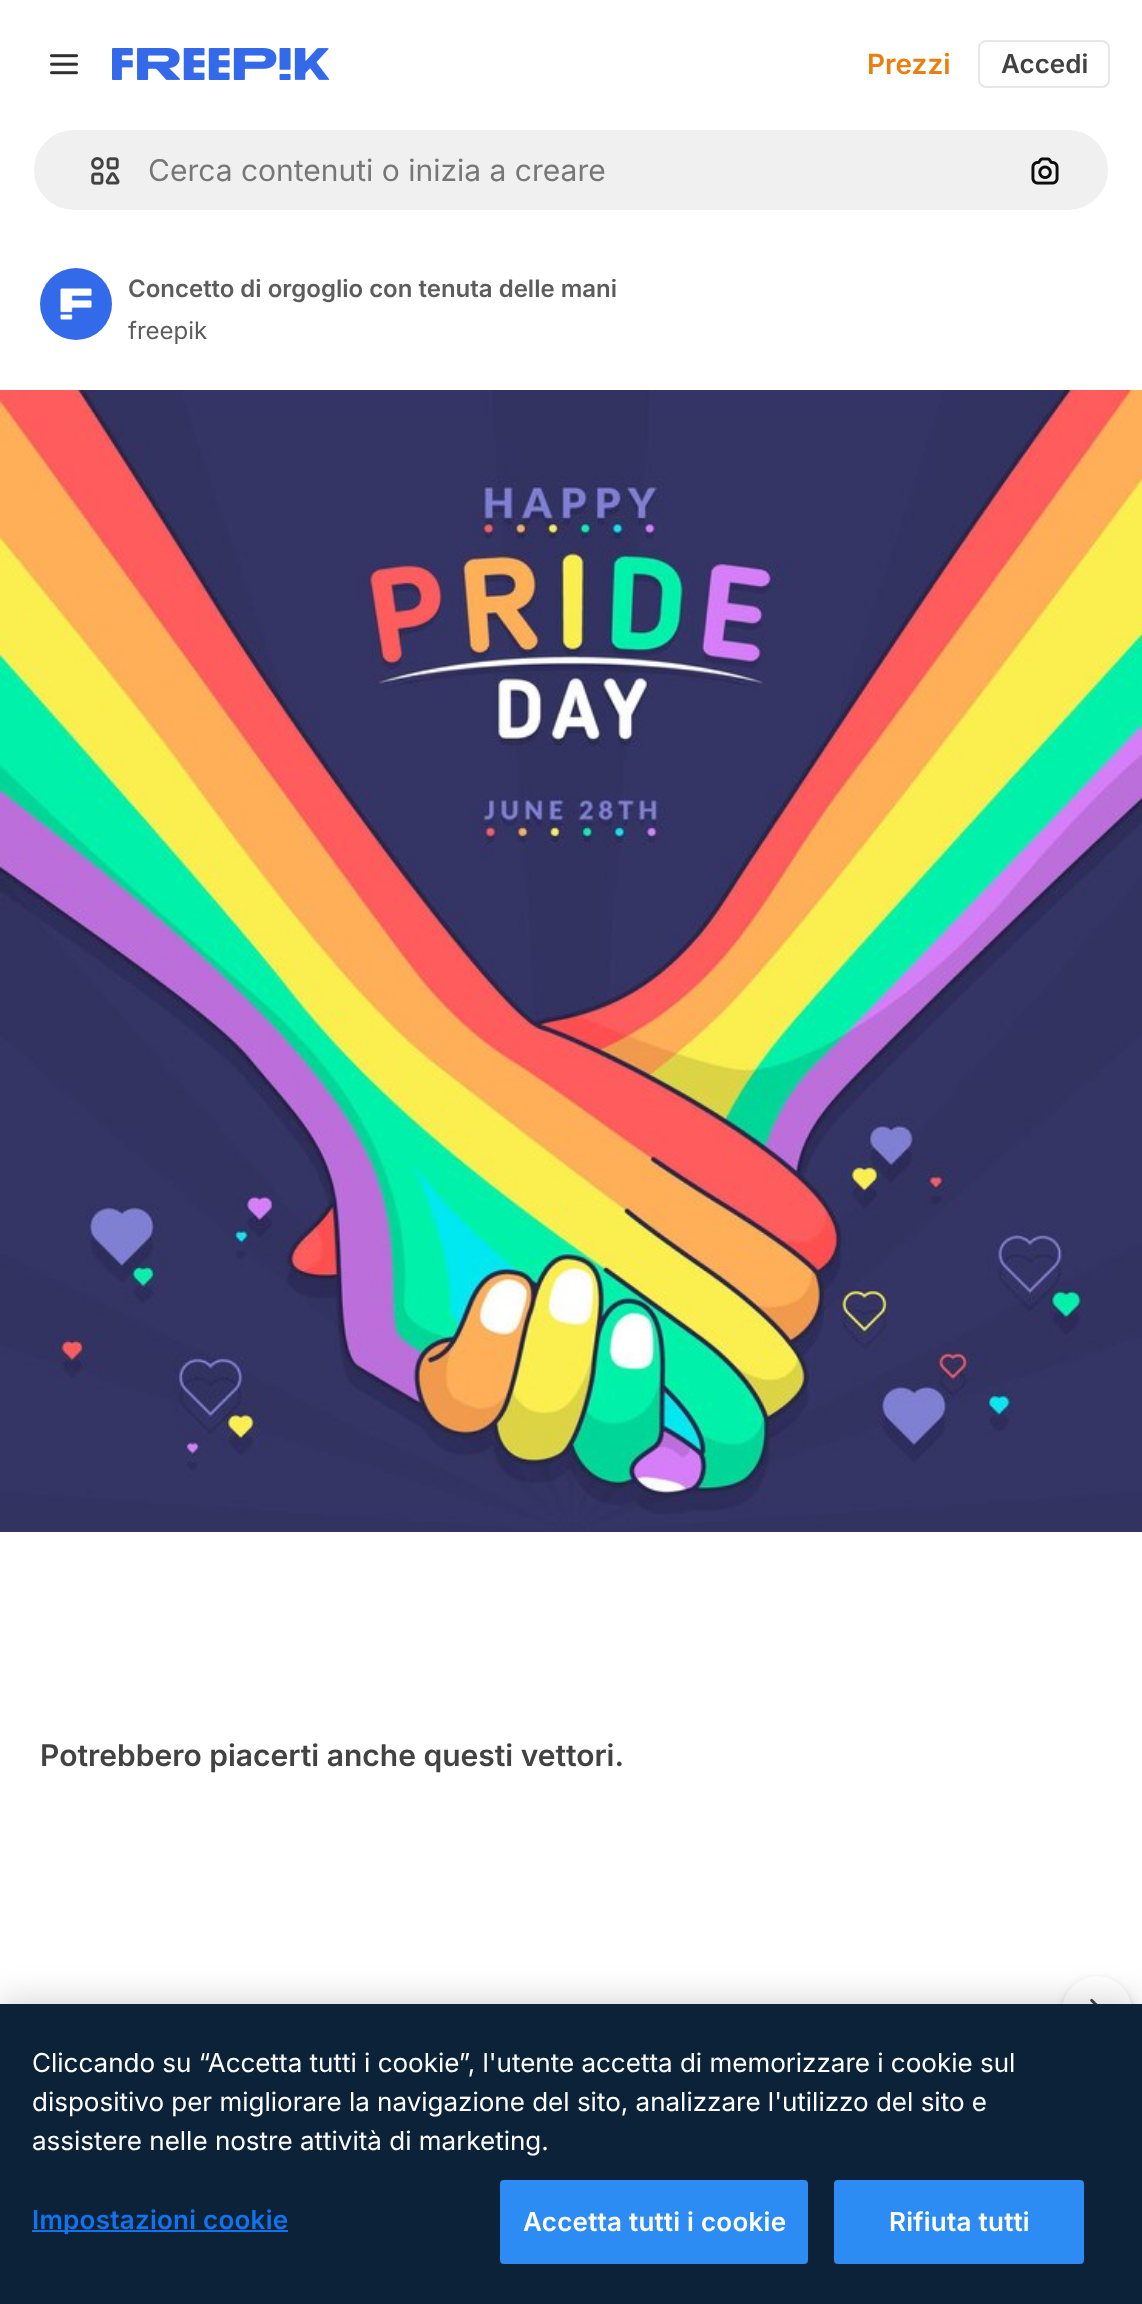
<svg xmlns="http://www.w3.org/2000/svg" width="1142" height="2304">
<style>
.a{font:600 28px Inter;fill:#ea7e11}
.b{font:600 26px Inter;fill:#424242}
.c{font:30px Inter;fill:#777}
.d{font:600 24px Inter;fill:#5c5c5c}
.e{font:24px Inter;fill:#5c5c5c}
.f{font:600 30px Inter;fill:#424242}
.g{font:26px Inter;fill:#fff}
.h{font:600 26px Inter;letter-spacing:0.25px;fill:#1273eb}
.i{font:600 26px Inter;letter-spacing:0.25px;fill:#fff}
</style>
<rect width="100%" height="100%" fill="#fff"/>
<image href="1.png" x="50" y="54" width="28" height="21"/>
<image href="2.png" x="112" y="48" width="218" height="32"/>
<rect fill="none" stroke="#e7e7e7" stroke-width="2" x="979" y="41" width="130" height="46" rx="7"/>
<rect fill="#f0f0f0" stroke="#fff" stroke-width="2" x="33" y="129" width="1076" height="82" rx="41"/>
<image href="3.png" x="91" y="157" width="29" height="28"/>
<image href="4.png" x="1031" y="157" width="28" height="28"/>
<image href="5.png" x="40" y="268" width="72" height="72"/>
<image href="6.png" x="0" y="390" width="1142" height="1142"/>
<rect fill="#37495726" filter="blur(5px)" x="1062" y="1980" width="70" height="70" rx="35"/>
<rect fill="#3749571a" filter="blur(2px)" x="1062" y="1978" width="70" height="70" rx="35"/>
<circle fill="#fff" cx="1097" cy="2011" r="35"/>
<image href="7.png" x="1090" y="1998" width="8" height="6"/>
<path fill="#00000033" filter="blur(18px)" d="M0 2004h1142v300H0z"/>
<path fill="#0b2239" d="M0 2004h1142v300H0z"/>
<path fill="#1273eb" d="M32 2230h256v2H32z"/>
<rect fill="#2c8cf4" stroke="#2c8cf4" stroke-width="2" x="501" y="2181" width="306" height="82" rx="3"/>
<rect fill="#2c8cf4" stroke="#2c8cf4" stroke-width="2" x="835" y="2181" width="248" height="82" rx="3"/>
<text class="a" x="867" y="74">Prezzi</text>
<text class="b" x="1001" y="73">Accedi</text>
<text class="c" x="148" y="181">Cerca contenuti o inizia a creare</text>
<text class="d" x="128" y="297">Concetto di orgoglio con tenuta delle mani</text>
<text class="e" x="128" y="339">freepik</text>
<text class="f" x="40" y="1766">Potrebbero piacerti anche questi vettori.</text>
<text class="g" x="32" y="2072">Cliccando su “Accetta tutti i cookie”, l'utente accetta di memorizzare i cookie sul</text>
<text class="g" x="32" y="2111">dispositivo per migliorare la navigazione del sito, analizzare l'utilizzo del sito e</text>
<text class="g" x="32" y="2150">assistere nelle nostre attività di marketing.</text>
<text class="h" x="32" y="2229">Impostazioni cookie</text>
<text class="i" x="523" y="2231">Accetta tutti i cookie</text>
<text class="i" x="889" y="2231">Rifiuta tutti</text>
</svg>
